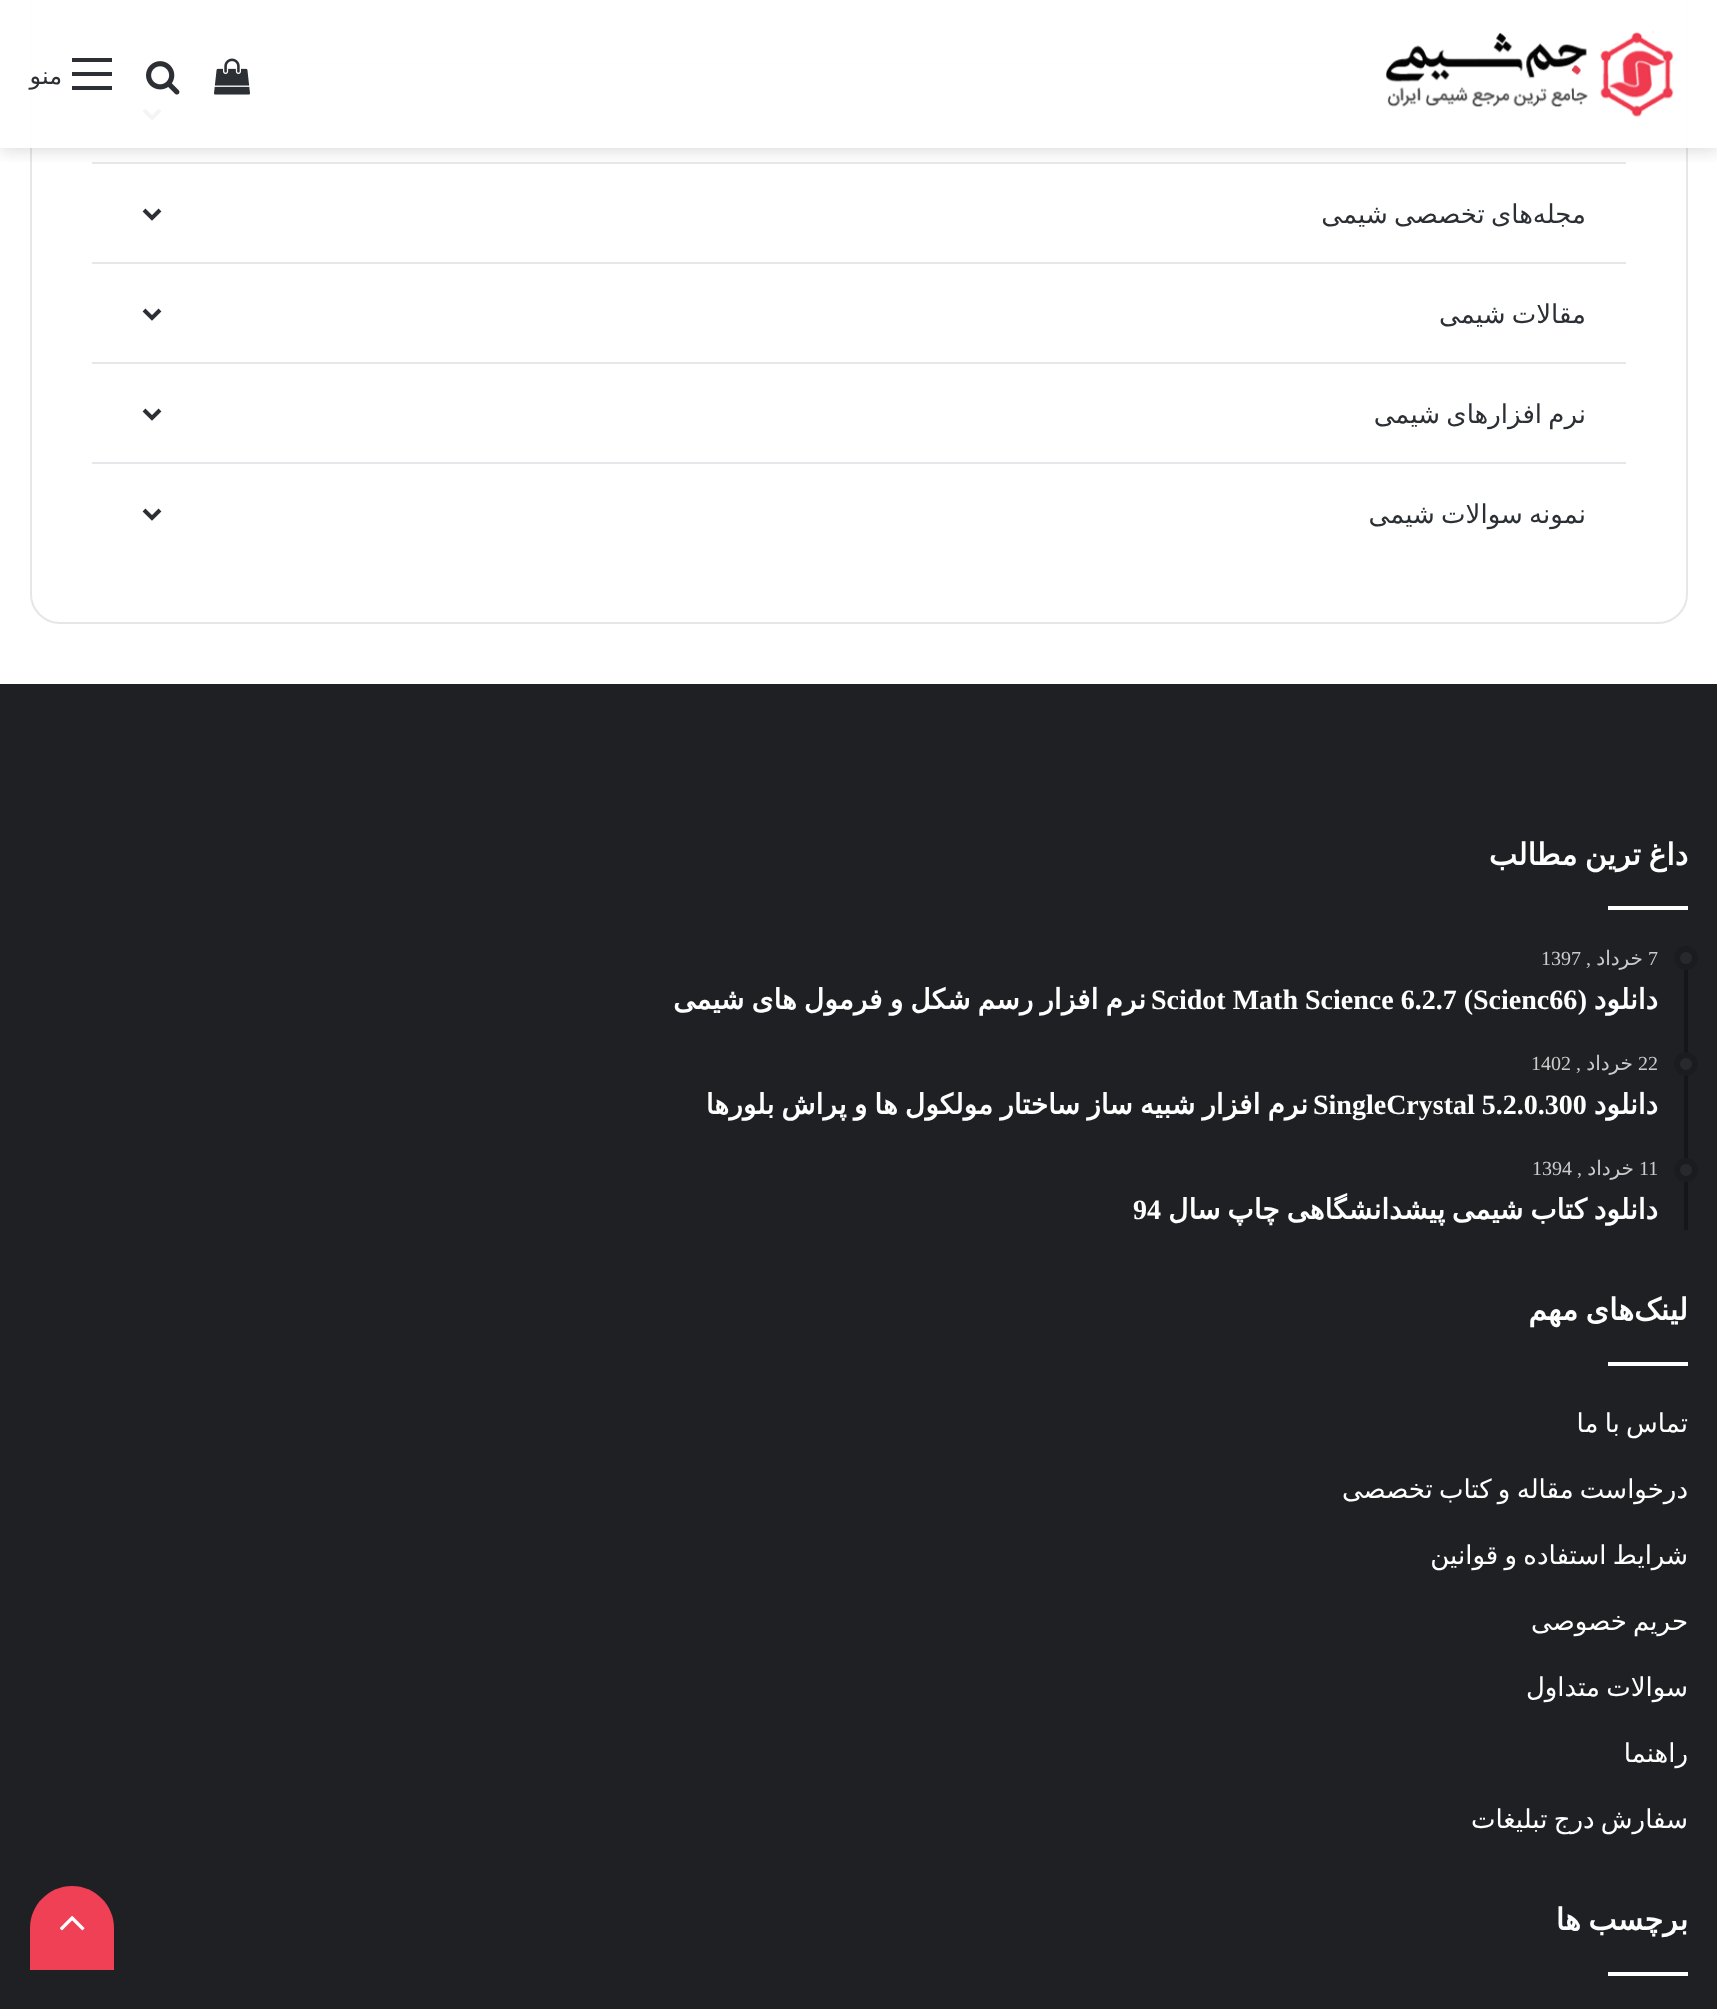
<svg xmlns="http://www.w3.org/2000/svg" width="1717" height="2009">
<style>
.a{font:24px DejaVu Sans;direction:rtl;fill:#2c2f34}
.b{font:26px DejaVu Sans;direction:rtl;fill:#2c2f34}
.c{font:bold 30px DejaVu Sans;direction:rtl;fill:#fff}
.d{font:20px Liberation Serif;fill:#ccc}
.e{font:20px DejaVu Sans;direction:rtl;fill:#ccc}
.f{font:20px Liberation Serif;direction:rtl;fill:#ccc}
.g{font:bold 28px DejaVu Sans;direction:rtl;fill:#fff}
.h{font:bold 28px Liberation Serif;direction:rtl;fill:#fff}
.i{font:bold 28px Liberation Serif;fill:#fff}
.j{font:26px DejaVu Sans;direction:rtl;fill:#fff}
</style>
<defs>
<clipPath id="clip1"><path d="M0 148h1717v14H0z"/></clipPath>
</defs>
<rect width="100%" height="100%" fill="#fff"/>
<rect fill="none" stroke="#e6e6e6" stroke-width="2" x="31" y="-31" width="1656" height="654" rx="29"/>
<path fill="#e5e7eb" d="M92 62h1534v2H92z"/>
<path fill="#e5e7eb" d="M92 162h1534v2H92z"/>
<path fill="none" stroke="#2c2f34" stroke-width="4" d="M144 110l8 8l8-8"/>
<g clip-path="url(#clip1)">
<path fill="#63636333" filter="blur(8px)" d="M0 4h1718v148H0z"/>
</g>
<path fill="#fffffff2" d="M30 0h1658v148H30z"/>
<image href="1.png" x="1385" y="31" width="289" height="86"/>
<image href="2.png" x="214" y="58" width="36" height="37"/>
<image href="3.png" x="146" y="61" width="34" height="34"/>
<path fill="#2c2f34" d="M72 72h40v4H72z"/>
<path fill="#2c2f34" d="M72 58h40v4H72z"/>
<path fill="#2c2f34" d="M72 86h40v4H72z"/>
<path fill="#e5e7eb" d="M92 262h1534v2H92z"/>
<path fill="none" stroke="#2c2f34" stroke-width="4" d="M144 210l8 8l8-8"/>
<path fill="#e5e7eb" d="M92 362h1534v2H92z"/>
<path fill="none" stroke="#2c2f34" stroke-width="4" d="M144 310l8 8l8-8"/>
<path fill="#e5e7eb" d="M92 462h1534v2H92z"/>
<path fill="none" stroke="#2c2f34" stroke-width="4" d="M144 410l8 8l8-8"/>
<path fill="none" stroke="#2c2f34" stroke-width="4" d="M144 510l8 8l8-8"/>
<path fill="#1f2024" d="M0 684h1717v1325H0z"/>
<path fill="#fff" d="M1608 906h80v4H1608z"/>
<path fill="#161619" d="M1684 946h4v284H1684z"/>
<circle fill="#27292d" cx="1686" cy="958" r="12"/>
<circle fill="none" stroke="#0000004d" stroke-width="6" cx="1686" cy="958" r="9"/>
<circle fill="#27292d" cx="1686" cy="1064" r="12"/>
<circle fill="none" stroke="#0000004d" stroke-width="6" cx="1686" cy="1064" r="9"/>
<circle fill="#27292d" cx="1686" cy="1170" r="12"/>
<circle fill="none" stroke="#0000004d" stroke-width="6" cx="1686" cy="1170" r="9"/>
<path fill="#fff" d="M1608 1362h80v4H1608z"/>
<path fill="#fff" d="M1608 1972h80v4H1608z"/>
<path fill="#ef4056" d="M72 1886c23 0 42 19 42 42v42h-84v-42c0-23 19-42 42-42z"/>
<image href="4.png" x="59" y="1916" width="26" height="15"/>
<text class="a" x="62" y="84">منو</text>
<text class="b" x="1533" y="223" word-spacing="-2">های تخصصی شیمی</text>
<text class="b" x="1586" y="223">مجله</text>
<text class="b" x="1586" y="323" word-spacing="-2">مقالات شیمی</text>
<text class="b" x="1586" y="423" word-spacing="-2">نرم افزارهای شیمی</text>
<text class="b" x="1586" y="523" word-spacing="-2">نمونه سوالات شیمی</text>
<text class="c" x="1688" y="865" word-spacing="-2">داغ ترین مطالب</text>
<text class="d" x="1648" y="965">7</text>
<text class="e" x="1643" y="965">خرداد</text>
<text class="f" x="1591" y="965">,</text>
<text class="d" x="1541" y="965">1397</text>
<text class="g" x="1658" y="1009">دانلود</text>
<text class="h" x="1587" y="1009">(</text>
<text class="g" x="1146" y="1009" word-spacing="-1.75">نرم افزار رسم شکل و فرمول های شیمی</text>
<text class="i" x="1151" y="1009">Scidot Math Science 6.2.7 (Scienc66</text>
<text class="d" x="1638" y="1070">22</text>
<text class="e" x="1633" y="1070">خرداد</text>
<text class="f" x="1581" y="1070">,</text>
<text class="d" x="1531" y="1070">1402</text>
<text class="g" x="1658" y="1114">دانلود</text>
<text class="g" x="1308" y="1114" word-spacing="-1.75">نرم افزار شبیه ساز ساختار مولکول ها و پراش بلورها</text>
<text class="i" x="1313" y="1114">SingleCrystal 5.2.0.300</text>
<text class="d" x="1639" y="1175">11</text>
<text class="e" x="1634" y="1175">خرداد</text>
<text class="f" x="1582" y="1175">,</text>
<text class="d" x="1532" y="1175">1394</text>
<text class="g" x="1658" y="1219" word-spacing="-2">دانلود کتاب شیمی پیشدانشگاهی چاپ سال</text>
<text class="i" x="1133" y="1219">94</text>
<text class="c" x="1688" y="1320">لینک</text>
<text class="c" x="1634" y="1320" word-spacing="-2">های مهم</text>
<text class="j" x="1688" y="1432" word-spacing="-2">تماس با ما</text>
<text class="j" x="1688" y="1498" word-spacing="-2">درخواست مقاله و کتاب تخصصی</text>
<text class="j" x="1688" y="1564" word-spacing="-2">شرایط استفاده و قوانین</text>
<text class="j" x="1688" y="1630" word-spacing="-2">حریم خصوصی</text>
<text class="j" x="1688" y="1696" word-spacing="-2">سوالات متداول</text>
<text class="j" x="1688" y="1762">راهنما</text>
<text class="j" x="1688" y="1828" word-spacing="-2">سفارش درج تبلیغات</text>
<text class="c" x="1688" y="1930" word-spacing="-2">برچسب ها</text>
</svg>
